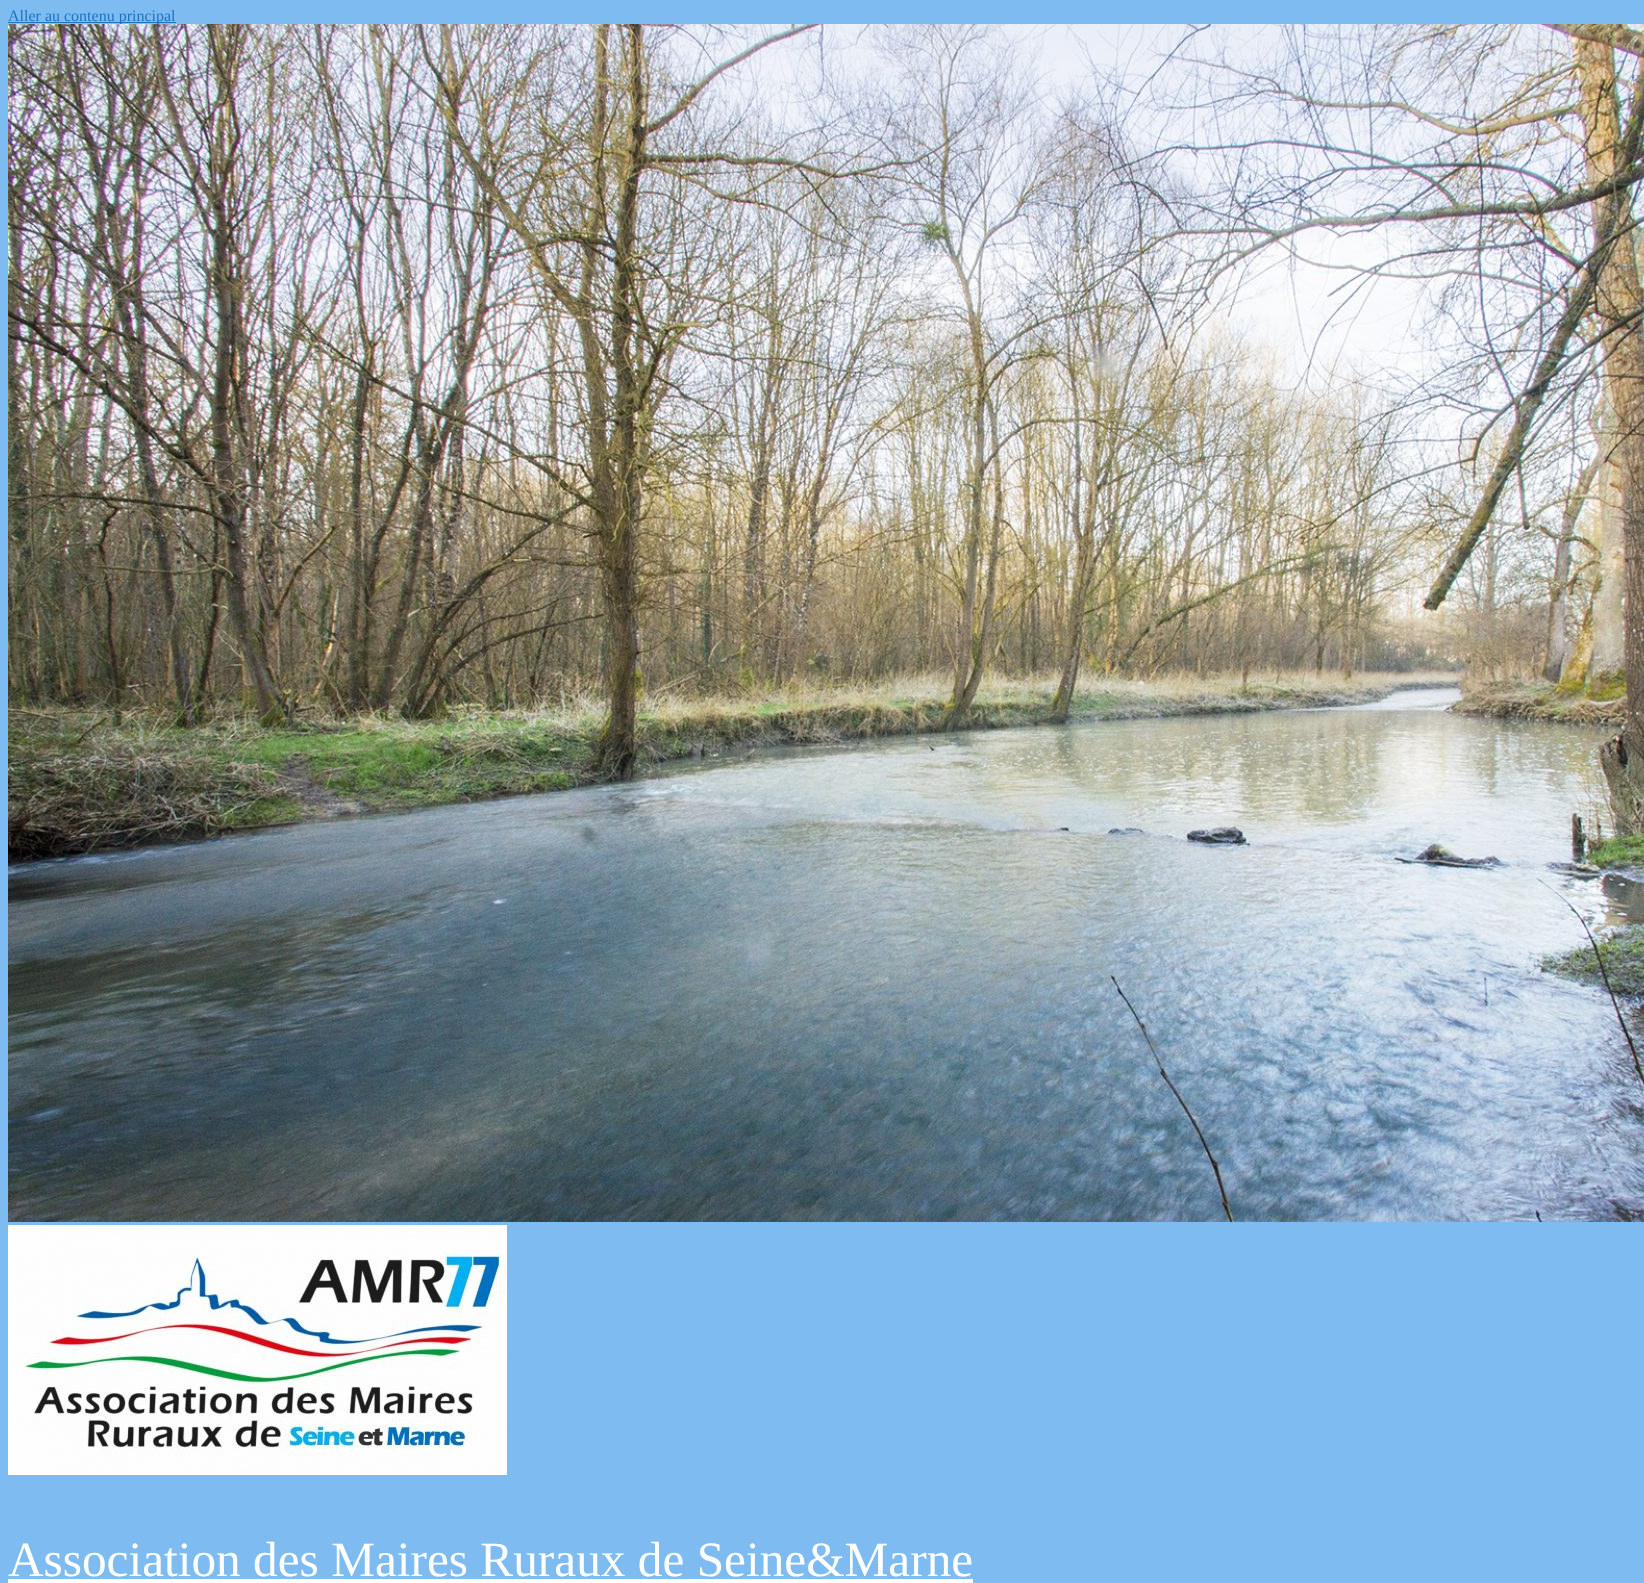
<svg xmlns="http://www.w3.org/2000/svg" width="1644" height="1583">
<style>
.a{font:16px Liberation Serif;fill:#1e73be}
.b{font:49.3px Liberation Serif;fill:#fff}
</style>
<rect width="100%" height="100%" fill="#7dbbf1"/>
<path fill="#1e73be" d="M8 22h168v1H8z"/>
<image href="2.png" x="8" y="1225" width="499" height="250"/>
<path fill="#fff" d="M8 1579h965v4H8z"/>
<text class="a" x="8" y="21">Aller au contenu principal</text>
<image href="1.png" x="8" y="24" width="1636" height="1198"/>
<text class="b" x="8" y="1576">Association des Maires Ruraux de Seine&amp;Marne</text>
</svg>
